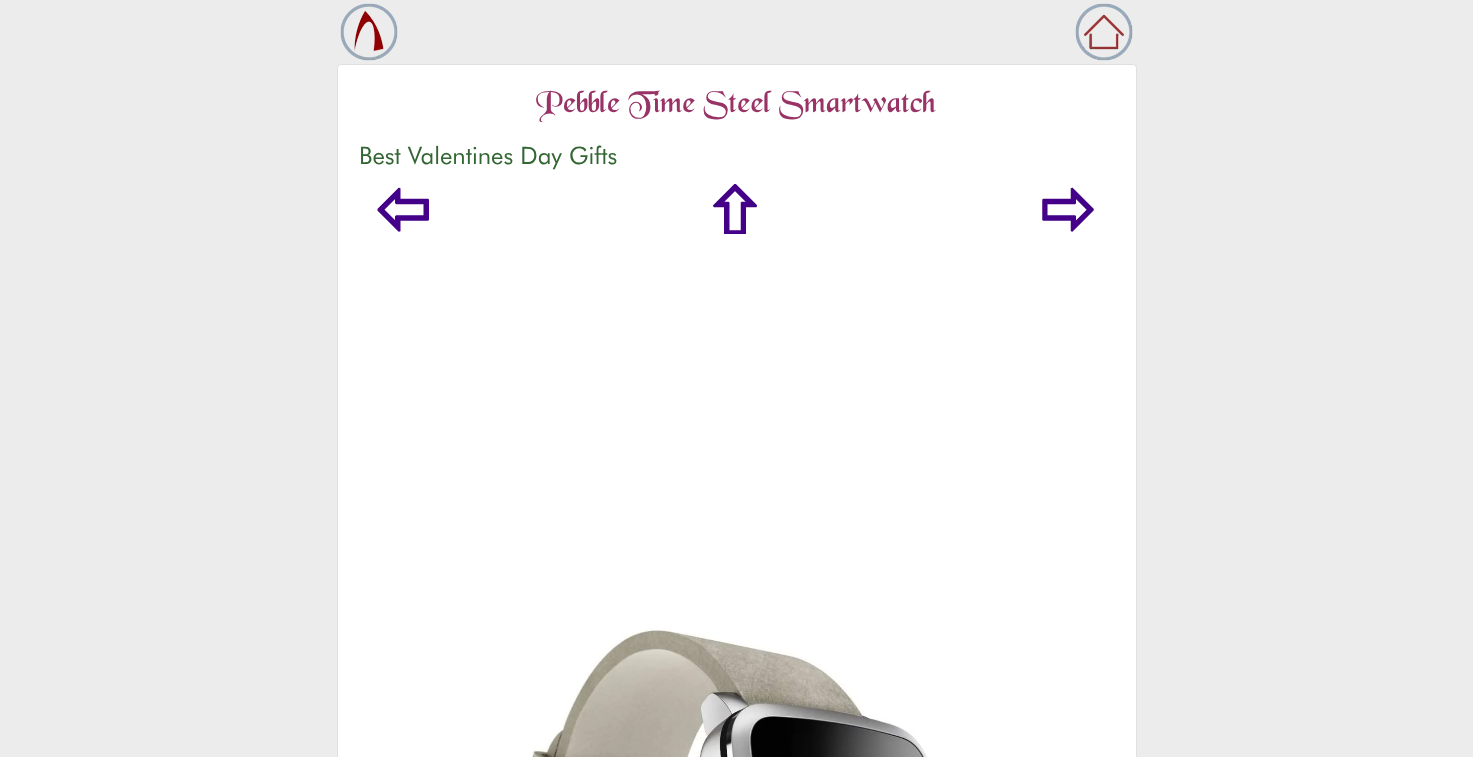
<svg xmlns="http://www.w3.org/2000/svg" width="1473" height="757">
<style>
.a{font:900 32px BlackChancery;fill:#936}
.b{font:24px Futura;fill:#363}
</style>
<rect width="100%" height="100%" fill="#ececec"/>
<image href="1.png" x="340" y="3" width="58" height="58"/>
<image href="2.png" x="1075" y="3" width="58" height="58"/>
<path fill="#fff" d="M341 64h792c2 0 4 2 4 4v689h-800v-689c0-2 2-4 4-4z"/>
<rect fill="none" stroke="#0000001f" x="337.5" y="64.5" width="799" height="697" rx="3.5"/>
<image href="3.png" x="377" y="187" width="52" height="45"/>
<image href="4.png" x="713" y="184" width="44" height="50"/>
<image href="5.png" x="1042" y="187" width="52" height="45"/>
<image href="6.png" x="532" y="628" width="395" height="129"/>
<text class="a" x="536" y="112">Pebble Time Steel Smartwatch</text>
<text class="b" x="359" y="164">Best Valentines Day Gifts</text>
</svg>
